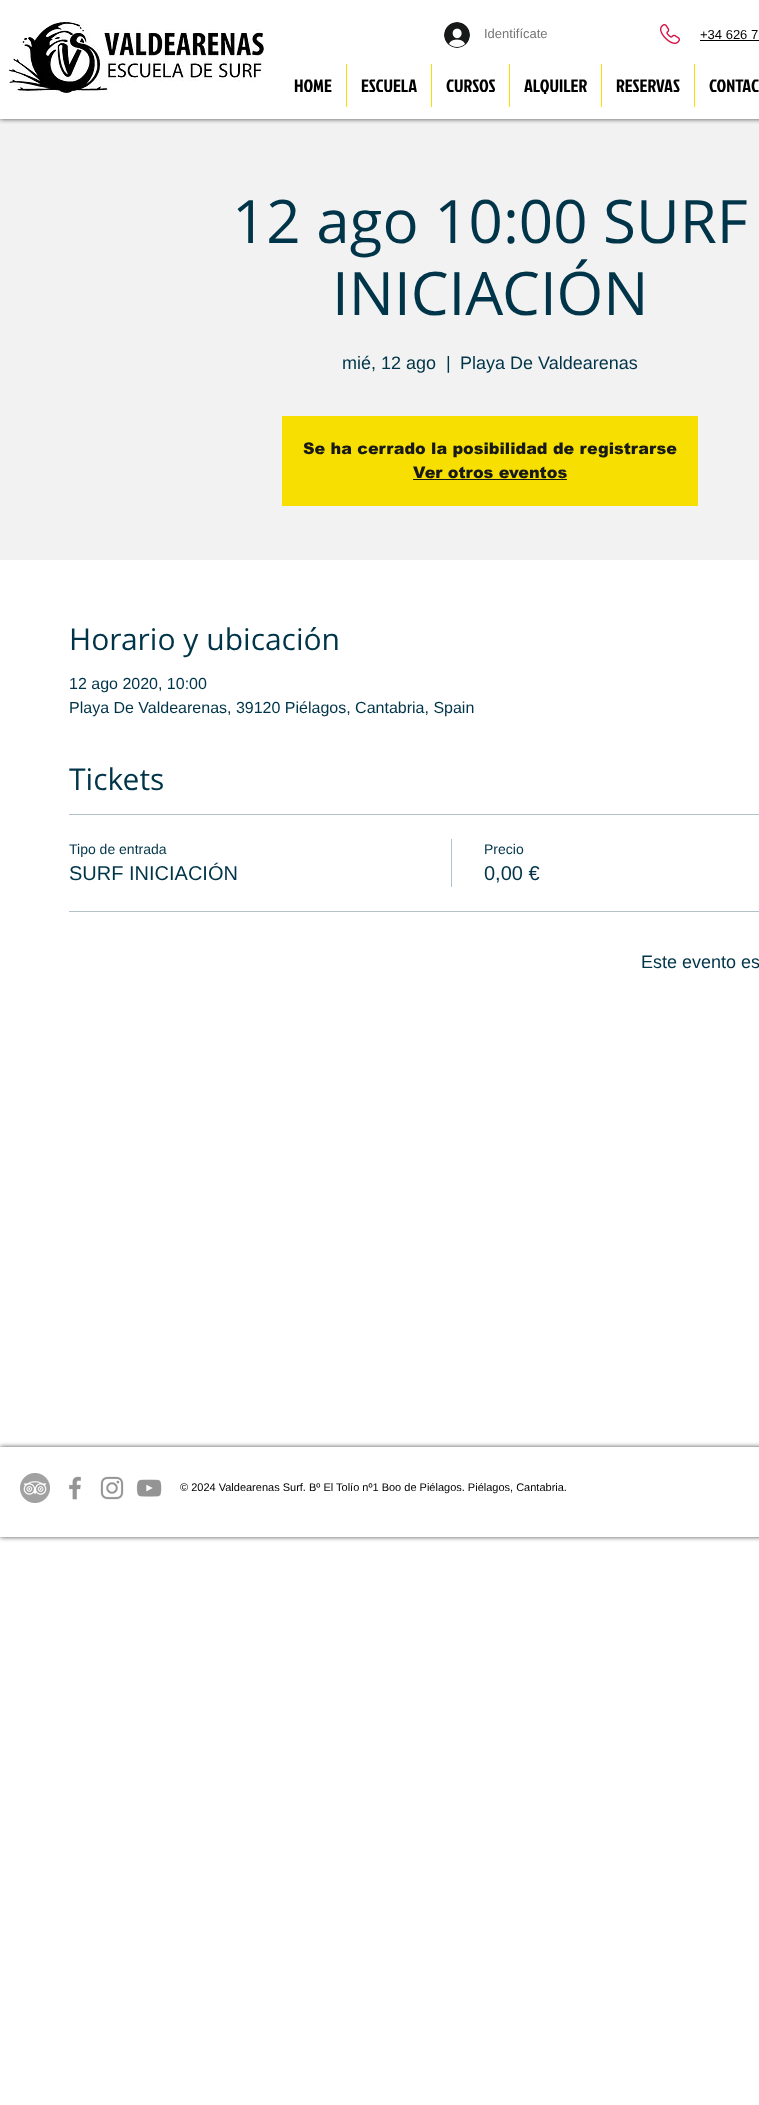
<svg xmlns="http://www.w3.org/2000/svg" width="759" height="2105">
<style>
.a{font:13px Liberation Sans;fill:#747575}
.b{font:13px Liberation Sans;fill:#000}
.c{font:18px Jockey One;fill:#000}
.d{font:60px Open Sans;fill:#003448}
.e{font:18px Liberation Sans;fill:#003448}
.f{font:900 16px arial;fill:#181919}
.g{font:30px Open Sans;fill:#003448}
.h{font:16px Liberation Sans;fill:#003448}
.i{font:14px Liberation Sans;fill:#003448}
.j{font:20px Liberation Sans;fill:#003448}
.k{font:11px Liberation Sans;fill:#000}
</style>
<defs>
<clipPath id="clip1"><path d="M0 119h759v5H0z"/></clipPath>
<clipPath id="clip2"><path d="M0 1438h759v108h-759zm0 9h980v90h-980z" clip-rule="evenodd"/></clipPath>
</defs>
<rect width="100%" height="100%" fill="#fff"/>
<path fill="#f2f2f2" d="M0 119h759v441H0z"/>
<g clip-path="url(#clip1)">
<path fill="#000000b3" filter="blur(2.5px)" d="M0 0h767v119H0z"/>
</g>
<image href="1.png" x="8" y="21" width="256" height="72"/>
<image href="2.png" x="444" y="22" width="26" height="26"/>
<image href="3.png" x="660" y="24" width="20" height="20"/>
<path fill="#000" d="M700 40h59v1H700z"/>
<path fill="#f7df02" d="M346 64h1v43H346z"/>
<path fill="#f7df02" d="M431 64h1v43H431z"/>
<path fill="#f7df02" d="M509 64h1v43H509z"/>
<path fill="#f7df02" d="M601 64h1v43H601z"/>
<path fill="#f7df02" d="M694 64h1v43H694z"/>
<path fill="#f7df02" d="M282 416h416v90H282z"/>
<path fill="#181919" d="M413 479h154v1H413z"/>
<path fill="#b3c2c8" d="M69 814h690v1H69z"/>
<path fill="#b3c2c8" d="M69 911h690v1H69z"/>
<path fill="#b3c2c8" d="M451 839h1v48H451z"/>
<g clip-path="url(#clip2)">
<path fill="#000000b3" filter="blur(2.5px)" d="M0 1447h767v90H0z"/>
</g>
<image href="4.png" x="20" y="1473" width="30" height="30"/>
<image href="5.png" x="69" y="1476" width="12" height="24"/>
<image href="6.png" x="100" y="1476" width="24" height="24"/>
<image href="7.png" x="136" y="1479" width="26" height="18"/>
<text class="a" x="484" y="38">Identifícate</text>
<text class="b" x="700" y="39">+34 626 7</text>
<text class="c" x="294" y="92">HOME</text>
<text class="c" x="361" y="92">ESCUELA</text>
<text class="c" x="446" y="92">CURSOS</text>
<text class="c" x="524" y="92">ALQUILER</text>
<text class="c" x="616" y="92">RESERVAS</text>
<text class="c" x="709" y="92">CONTAC</text>
<text class="d" x="232" y="243">12 ago 10:00 SURF</text>
<text class="d" x="332" y="315">INICIACIÓN</text>
<text class="e" x="342" y="369">mié, 12 ago</text>
<text class="e" x="446" y="369">|</text>
<text class="e" x="460" y="369">Playa De Valdearenas</text>
<text class="f" x="303" y="454">Se ha cerrado la posibilidad de registrarse</text>
<text class="f" x="413" y="478">Ver otros eventos</text>
<text class="g" x="69" y="650">Horario y ubicación</text>
<text class="h" x="69" y="689">12 ago 2020, 10:00</text>
<text class="h" x="69" y="713">Playa De Valdearenas, 39120 Piélagos, Cantabria, Spain</text>
<text class="g" x="69" y="790">Tickets</text>
<text class="i" x="69" y="854">Tipo de entrada</text>
<text class="j" x="69" y="880">SURF INICIACIÓN</text>
<text class="i" x="484" y="854">Precio</text>
<text class="j" x="484" y="880">0,00 €</text>
<text class="e" x="641" y="968">Este evento es</text>
<text class="k" x="180" y="1491">© 2024 Valdearenas Surf. Bº El Tolío nº1 Boo de Piélagos. Piélagos, Cantabria.</text>
</svg>
